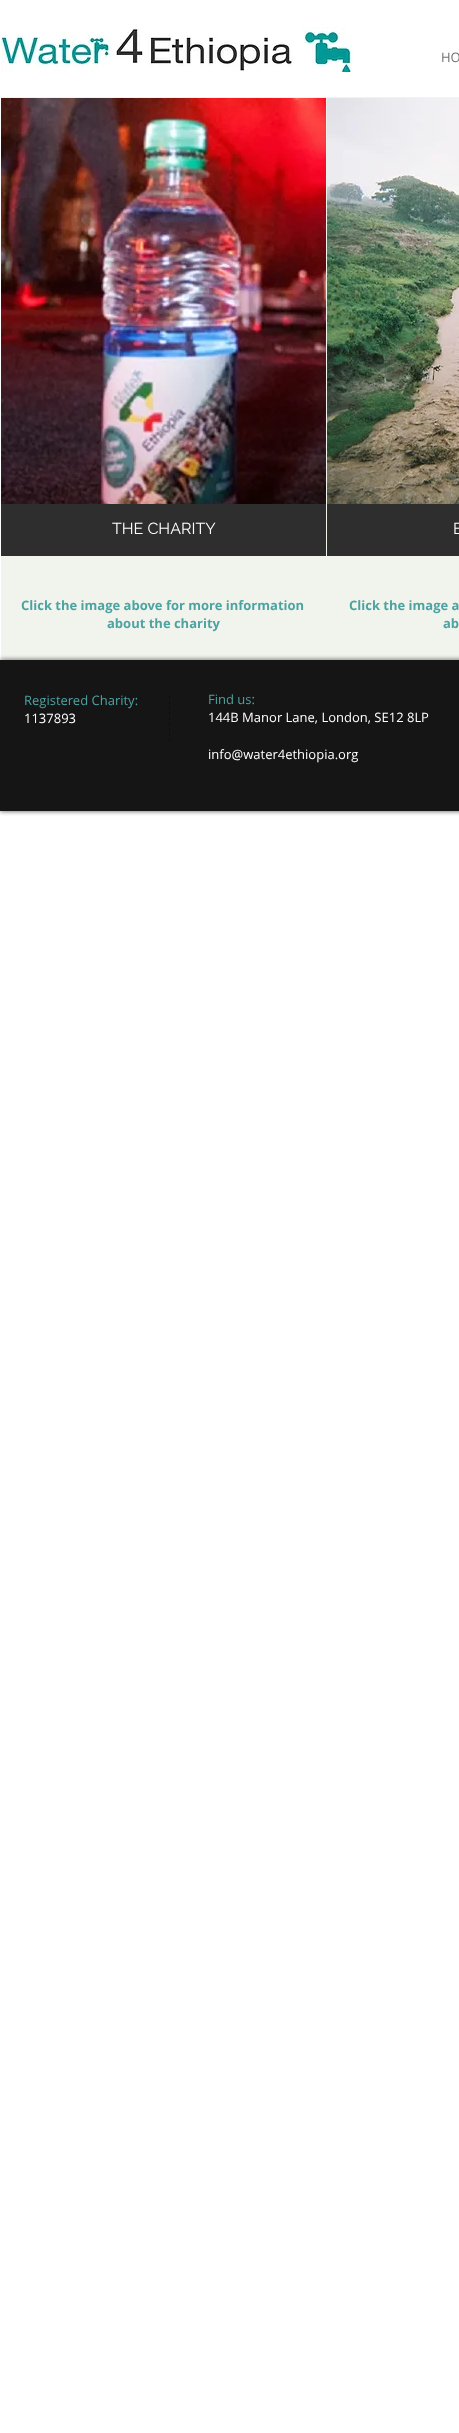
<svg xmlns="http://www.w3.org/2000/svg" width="459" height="2433">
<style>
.a{font:13px Open Sans;fill:#737070}
.b{font:16px Raleway;fill:#fff}
.c{font:bold 13px Open Sans;fill:#4da3a2}
.d{font:13px Open Sans;fill:#4da3a2}
.e{font:13px Open Sans;fill:#fff}
</style>
<rect width="100%" height="100%" fill="#fff"/>
<image href="1.png" x="0" y="27" width="353" height="45"/>
<path fill="#f1f4ed" d="M1 97h458v562H1z"/>
<image href="2.png" x="1" y="98" width="325" height="406"/>
<path fill="#2f2e2e" d="M1 504h325v52H1z"/>
<image href="3.png" x="327" y="98" width="132" height="406"/>
<path fill="#2f2e2e" d="M327 504h132v52H327z"/>
<path fill="#000000b3" filter="blur(2.5px)" d="M0 660h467v151H0z"/>
<path fill="#161515" d="M0 660h459v151H0z"/>
<path fill="none" stroke="#0e0e0e" stroke-dasharray="3 2.25" d="M169.5 696v45"/>
<text class="a" x="441" y="62">HO</text>
<text class="b" x="112" y="534">THE CHARITY</text>
<text class="b" x="453" y="534">E</text>
<text class="c" x="21" y="610">Click the image above for more information</text>
<text class="c" x="107" y="628">about the charity</text>
<text class="c" x="349" y="610">Click the image a</text>
<text class="c" x="443" y="628">ab</text>
<text class="d" x="24" y="705">Registered Charity:</text>
<text class="e" x="24" y="723">1137893</text>
<text class="d" x="208" y="704">Find us:</text>
<text class="e" x="208" y="722">144B Manor Lane, London, SE12 8LP</text>
<text class="e" x="208" y="759">info@water4ethiopia.org</text>
</svg>
